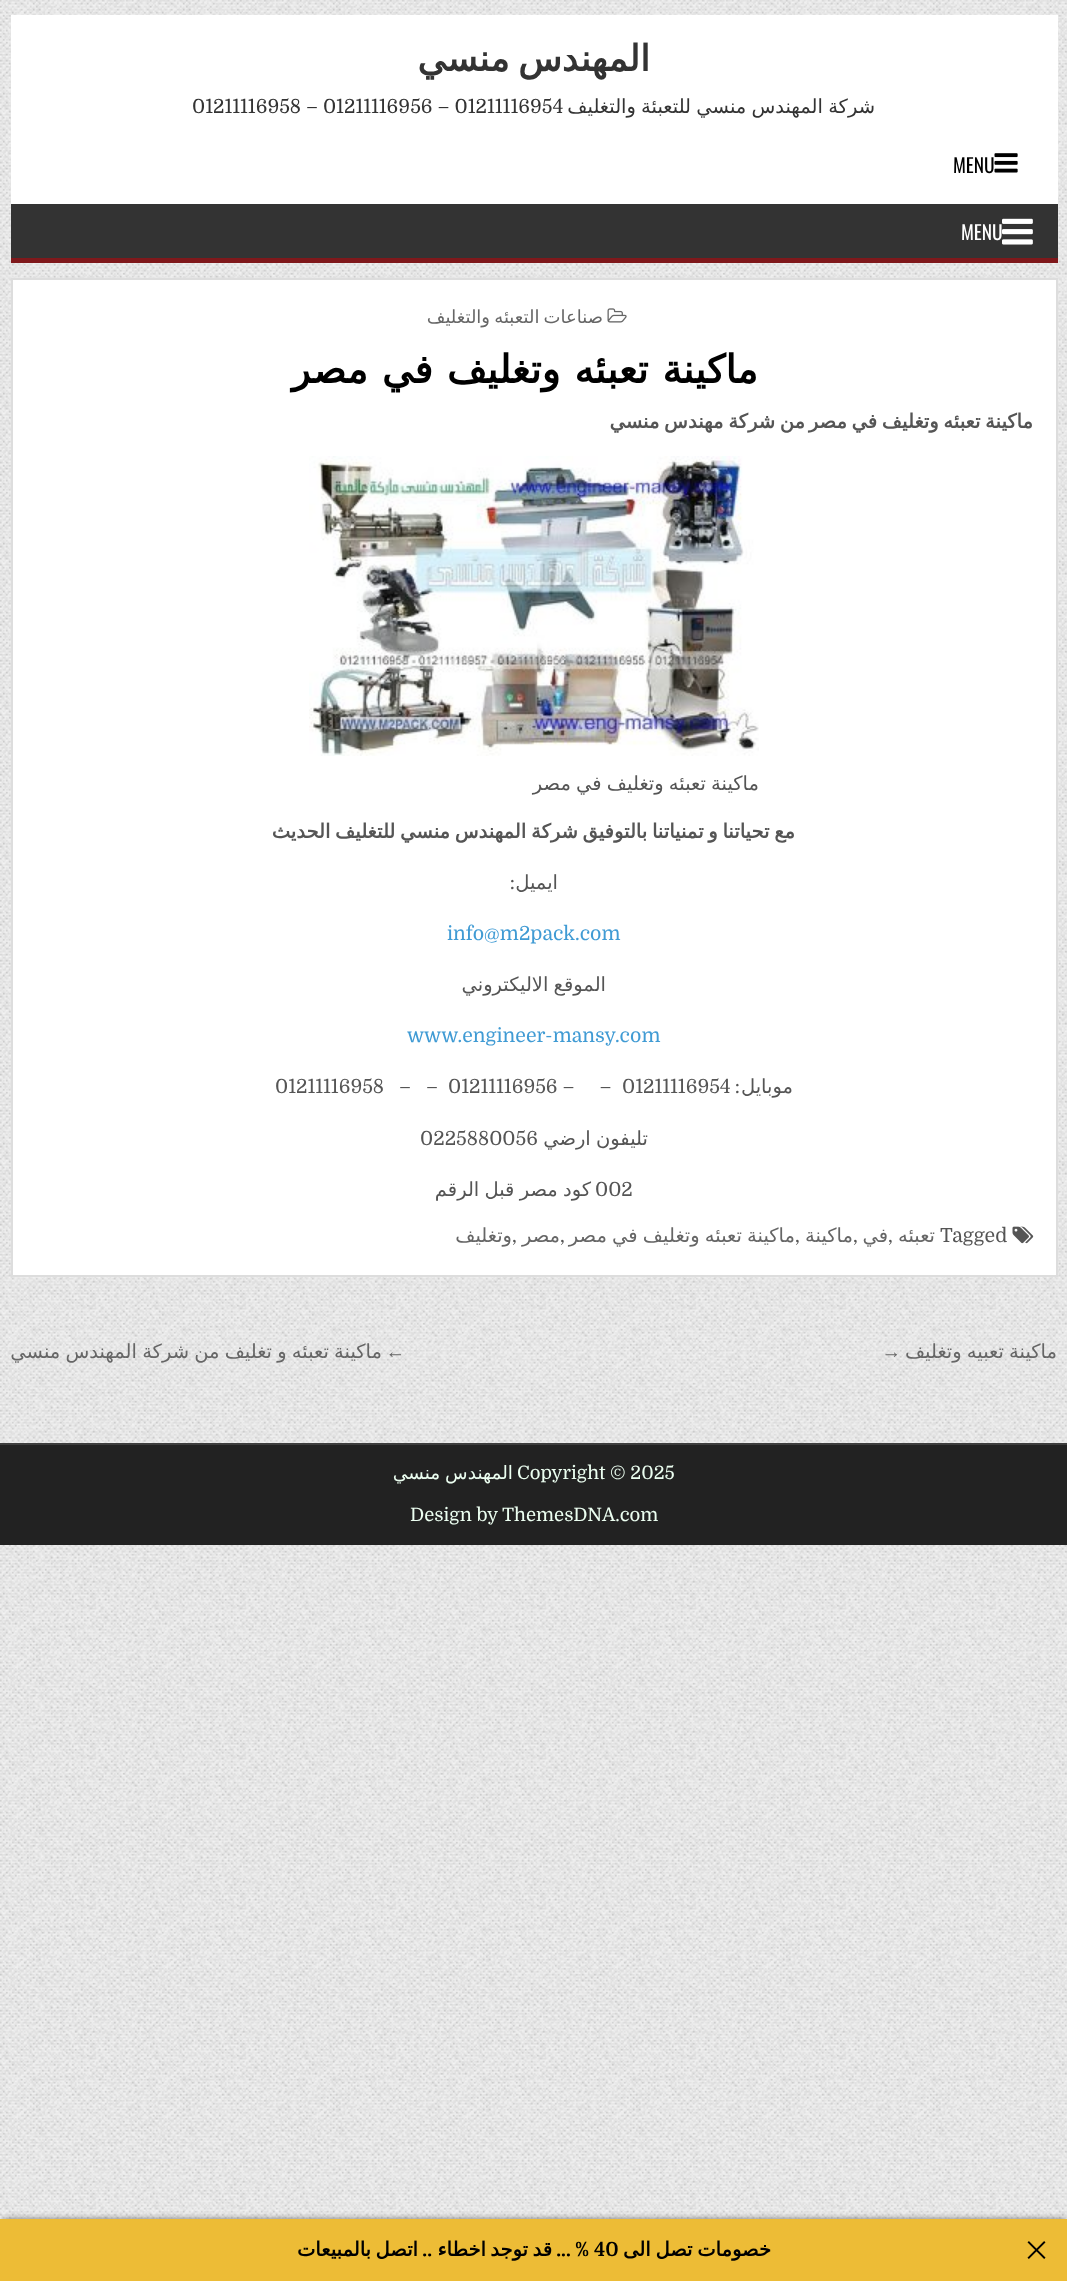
<svg xmlns="http://www.w3.org/2000/svg" width="1067" height="2281">
<style>
.a{font:bold 36px DejaVu Sans;direction:rtl;fill:#333}
.b{font:19.5px DejaVu Sans;direction:rtl;fill:#333}
.c{font:19.5px Domine;fill:#333}
.d{font:19.5px Oswald;fill:#000}
.e{font:19.5px Oswald;fill:#fff}
.f{font:18px DejaVu Sans;direction:rtl;fill:#666}
.g{font:bold 39px DejaVu Sans;letter-spacing:-0.75px;direction:rtl;fill:#000}
.h{font:bold 19.5px DejaVu Sans;direction:rtl;fill:#555}
.i{font:19.5px DejaVu Sans;direction:rtl;fill:#555}
.j{font:19.5px Domine;direction:rtl;fill:#555}
.k{font:19.5px Domine;fill:#409bd4}
.l{font:19.5px Domine;fill:#555}
.m{font:19.5px DejaVu Sans;direction:rtl;fill:#666}
.n{font:19.5px Liberation Sans;direction:rtl;fill:#666}
.o{font:18.5px Domine;fill:#ecfff1}
.p{font:18.5px DejaVu Sans;direction:rtl;fill:#ecfff1}
.q{font:bold 19.5px DejaVu Sans;direction:rtl;fill:#000}
.r{font:bold 19.5px Domine;fill:#000}
.s{font:bold 19.5px Domine;direction:rtl;fill:#000}
</style>
<defs>
<clipPath id="clip1"><path d="M11 1322h1047v76H11z"/></clipPath>
</defs>
<rect width="100%" height="100%" fill="#fff"/>
<image href="1.png" x="0" y="0" width="1067" height="2219"/>
<path fill="#fff" d="M11 15h1047v189H11z"/>
<image href="2.png" x="994" y="153" width="24" height="20"/>
<path fill="#333" d="M11 204h1047v54H11z"/>
<path fill="#7f181b" d="M11 258h1047v5H11z"/>
<image href="3.png" x="1002" y="218" width="31" height="27"/>
<path fill="#fff" stroke="#ddd" stroke-width="2" d="M12 279h1045v997H12z"/>
<image href="4.png" x="607" y="308" width="20" height="15"/>
<image href="5.png" x="309" y="456" width="450" height="300"/>
<image href="6.png" x="1012" y="1226" width="22" height="18"/>
<path fill="#222" d="M0 1445h1067v100H0z"/>
<path fill="#3d3d3d" d="M0 1443h1067v2H0z"/>
<path fill="#00000080" filter="blur(3px)" d="M3 2219h1062v57H3z"/>
<path fill="#edbc36" d="M0 2219h1067v62H0z"/>
<image href="7.png" x="1027" y="2241" width="19" height="18"/>
<text class="a" x="650" y="71" word-spacing="-3">المهندس منسي</text>
<text class="b" x="875" y="113" word-spacing="-1">شركة المهندس منسي للتعبئة والتغليف</text>
<text class="c" x="192" y="113">01211116958 – 01211116956 – 01211116954</text>
<text class="d" x="953" y="173">MENU</text>
<text class="e" x="961" y="240">MENU</text>
<text class="f" x="603" y="323" word-spacing="-1.5">صناعات التعبئه والتغليف</text>
<text class="g" x="758" y="383" word-spacing="1.5">ماكينة تعبئه وتغليف في مصر</text>
<text class="h" x="1033" y="428" word-spacing="-1.5">ماكينة تعبئه وتغليف في مصر</text>
<text class="h" x="805" y="428" word-spacing="-1.5">من شركة مهندس منسي</text>
<text class="i" x="759" y="790" word-spacing="-1">ماكينة تعبئه وتغليف في مصر</text>
<text class="h" x="795" y="838" word-spacing="-1.5">مع تحياتنا و تمنياتنا بالتوفيق شركة المهندس منسي للتغليف الحديث</text>
<text class="i" x="558" y="889">ايميل</text>
<text class="j" x="515" y="889">:</text>
<text class="k" x="447" y="940">info@m2pack.com</text>
<text class="i" x="606" y="991" word-spacing="-1">الموقع الاليكتروني</text>
<text class="k" x="407" y="1042">www.engineer-mansy.com</text>
<text class="i" x="793" y="1093">موبايل</text>
<text class="j" x="740" y="1093">:</text>
<text class="l" x="622" y="1093">01211116954</text>
<text class="l" xml:space="preserve" x="448" y="1093">01211116956 –     –</text>
<text class="l" xml:space="preserve" x="399" y="1093">–   –</text>
<text class="l" x="275" y="1093">01211116958</text>
<text class="i" x="648" y="1145" word-spacing="-1">تليفون ارضي</text>
<text class="l" x="420" y="1145">0225880056</text>
<text class="l" x="595" y="1196">002</text>
<text class="i" x="591" y="1196" word-spacing="-1">كود مصر قبل الرقم</text>
<text class="l" x="940" y="1242">Tagged</text>
<text class="m" x="935" y="1242">تعبئه</text>
<text class="m" x="888" y="1242">في</text>
<text class="m" x="853" y="1242">ماكينة</text>
<text class="l" x="560" y="1242">,</text>
<text class="m" x="560" y="1242">مصر</text>
<text class="l" x="512" y="1242">,</text>
<text class="m" x="512" y="1242">وتغليف</text>
<text class="l" x="888" y="1242">,</text>
<text class="l" x="853" y="1242">,</text>
<text class="l" x="795" y="1242">,</text>
<text class="m" x="795" y="1242" word-spacing="-1">ماكينة تعبئه وتغليف في مصر</text>
<g clip-path="url(#clip1)">
<text class="m" x="1057" y="1358" word-spacing="-1">ماكينة تعبيه وتغليف</text>
</g>
<text class="n" x="901" y="1358">→</text>
<text class="n" x="405" y="1358">←</text>
<text class="m" x="382" y="1358" word-spacing="-1">ماكينة تعبئه و تغليف من شركة المهندس منسي</text>
<text class="o" x="517" y="1479">Copyright © 2025</text>
<text class="p" x="513" y="1479" word-spacing="-1">المهندس منسي</text>
<text class="o" x="410" y="1521">Design by ThemesDNA.com</text>
<text class="q" x="771" y="2256" word-spacing="-1.5">خصومات تصل الى</text>
<text class="r" x="594" y="2256">40</text>
<text class="s" x="589" y="2256">% ...</text>
<text class="q" x="552" y="2256">قد</text>
<text class="q" x="528" y="2256">توجد</text>
<text class="q" x="486" y="2256">اخطاء</text>
<text class="s" x="432" y="2256">..</text>
<text class="q" x="418" y="2256">اتصل</text>
<text class="q" x="371" y="2256">بالمبيعات</text>
</svg>
